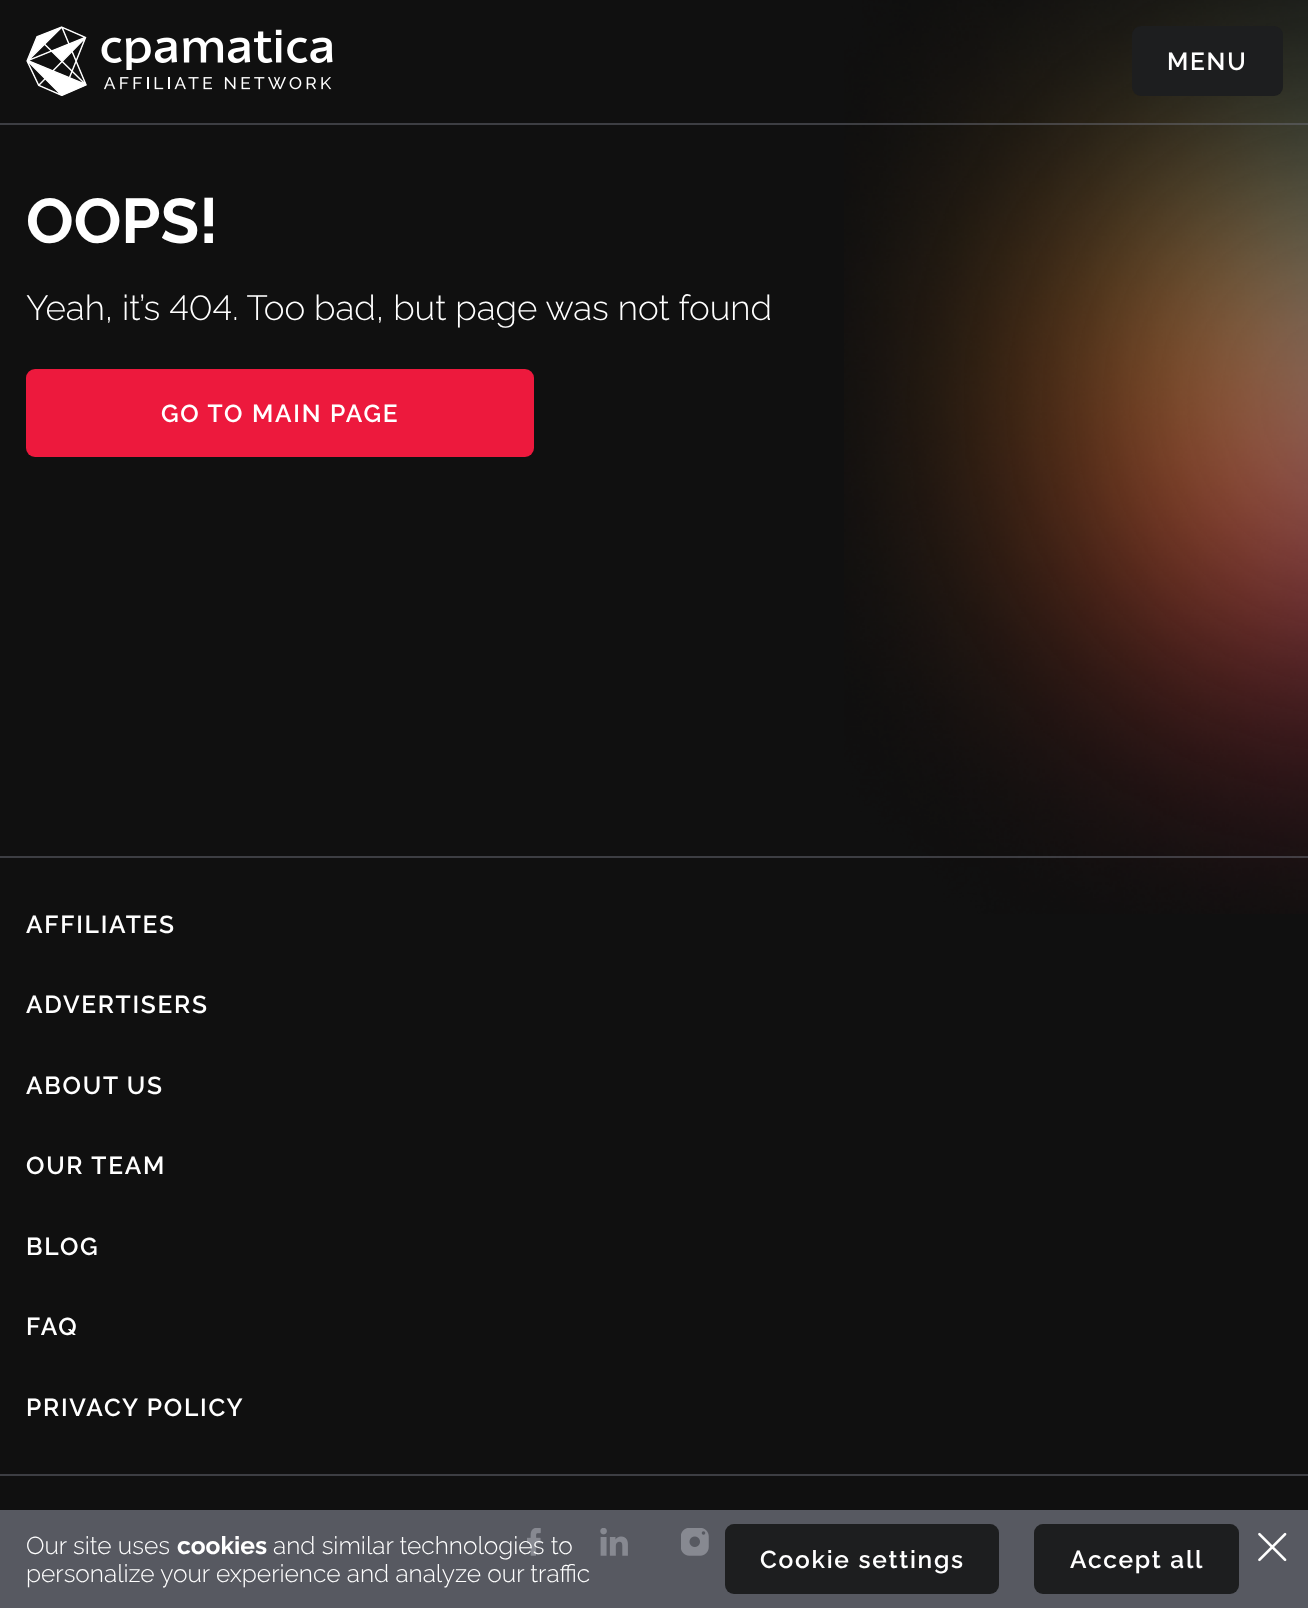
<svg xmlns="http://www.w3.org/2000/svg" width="1308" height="1608">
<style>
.a{font:600 24.5px Raleway;letter-spacing:1.75px;fill:#fff}
.b{font:bold 63px Raleway;fill:#fff}
.c{font:300 35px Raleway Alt;fill:#fff}
.d{font:300 24.5px Raleway;fill:#fff}
.e{font:bold 24.5px Raleway;fill:#fff}
</style>
<rect width="100%" height="100%" fill="#101010"/>
<path fill="#575961" d="M0 1510h1308v98H0z"/>
<image href="2.png" x="844" y="0" width="464" height="914"/>
<path fill="#696b7580" d="M0 123h1308v2H0z"/>
<image href="1.png" x="26" y="26" width="307" height="70"/>
<rect fill="#1d1e1f" x="1132" y="26" width="151" height="70" rx="9"/>
<rect fill="#ed193d" x="26" y="369" width="508" height="88" rx="9"/>
<path fill="#696b7580" d="M0 856h1308v2H0z"/>
<path fill="#3d3e43" d="M0 1474h1308v2H0z"/>
<image href="3.png" x="527" y="1528" width="14" height="28"/>
<image href="4.png" x="600" y="1528" width="28" height="28"/>
<image href="5.png" x="681" y="1528" width="28" height="28"/>
<rect fill="#1d1e1f" x="725" y="1524" width="274" height="70" rx="9"/>
<rect fill="#1d1e1f" x="1034" y="1524" width="205" height="70" rx="9"/>
<image href="6.png" x="1258" y="1532" width="29" height="30"/>
<text class="a" x="1167" y="70">MENU</text>
<text class="b" x="26" y="243">OOPS!</text>
<text class="c" x="26" y="320">Yeah, it’s 404. Too bad, but page was not found</text>
<text class="a" x="161" y="422">GO TO MAIN PAGE</text>
<text class="a" x="26" y="933">AFFILIATES</text>
<text class="a" x="26" y="1013">ADVERTISERS</text>
<text class="a" x="26" y="1094">ABOUT US</text>
<text class="a" x="26" y="1174">OUR TEAM</text>
<text class="a" x="26" y="1255">BLOG</text>
<text class="a" x="26" y="1335">FAQ</text>
<text class="a" x="26" y="1416">PRIVACY POLICY</text>
<text class="d" x="26" y="1554">Our site uses</text>
<text class="e" x="177" y="1554">cookies</text>
<text class="d" x="273" y="1554">and similar technologies to</text>
<text class="d" x="26" y="1582">personalize your experience and analyze our traffic</text>
<text class="a" x="760" y="1568">Cookie settings</text>
<text class="a" x="1070" y="1568">Accept all</text>
</svg>
